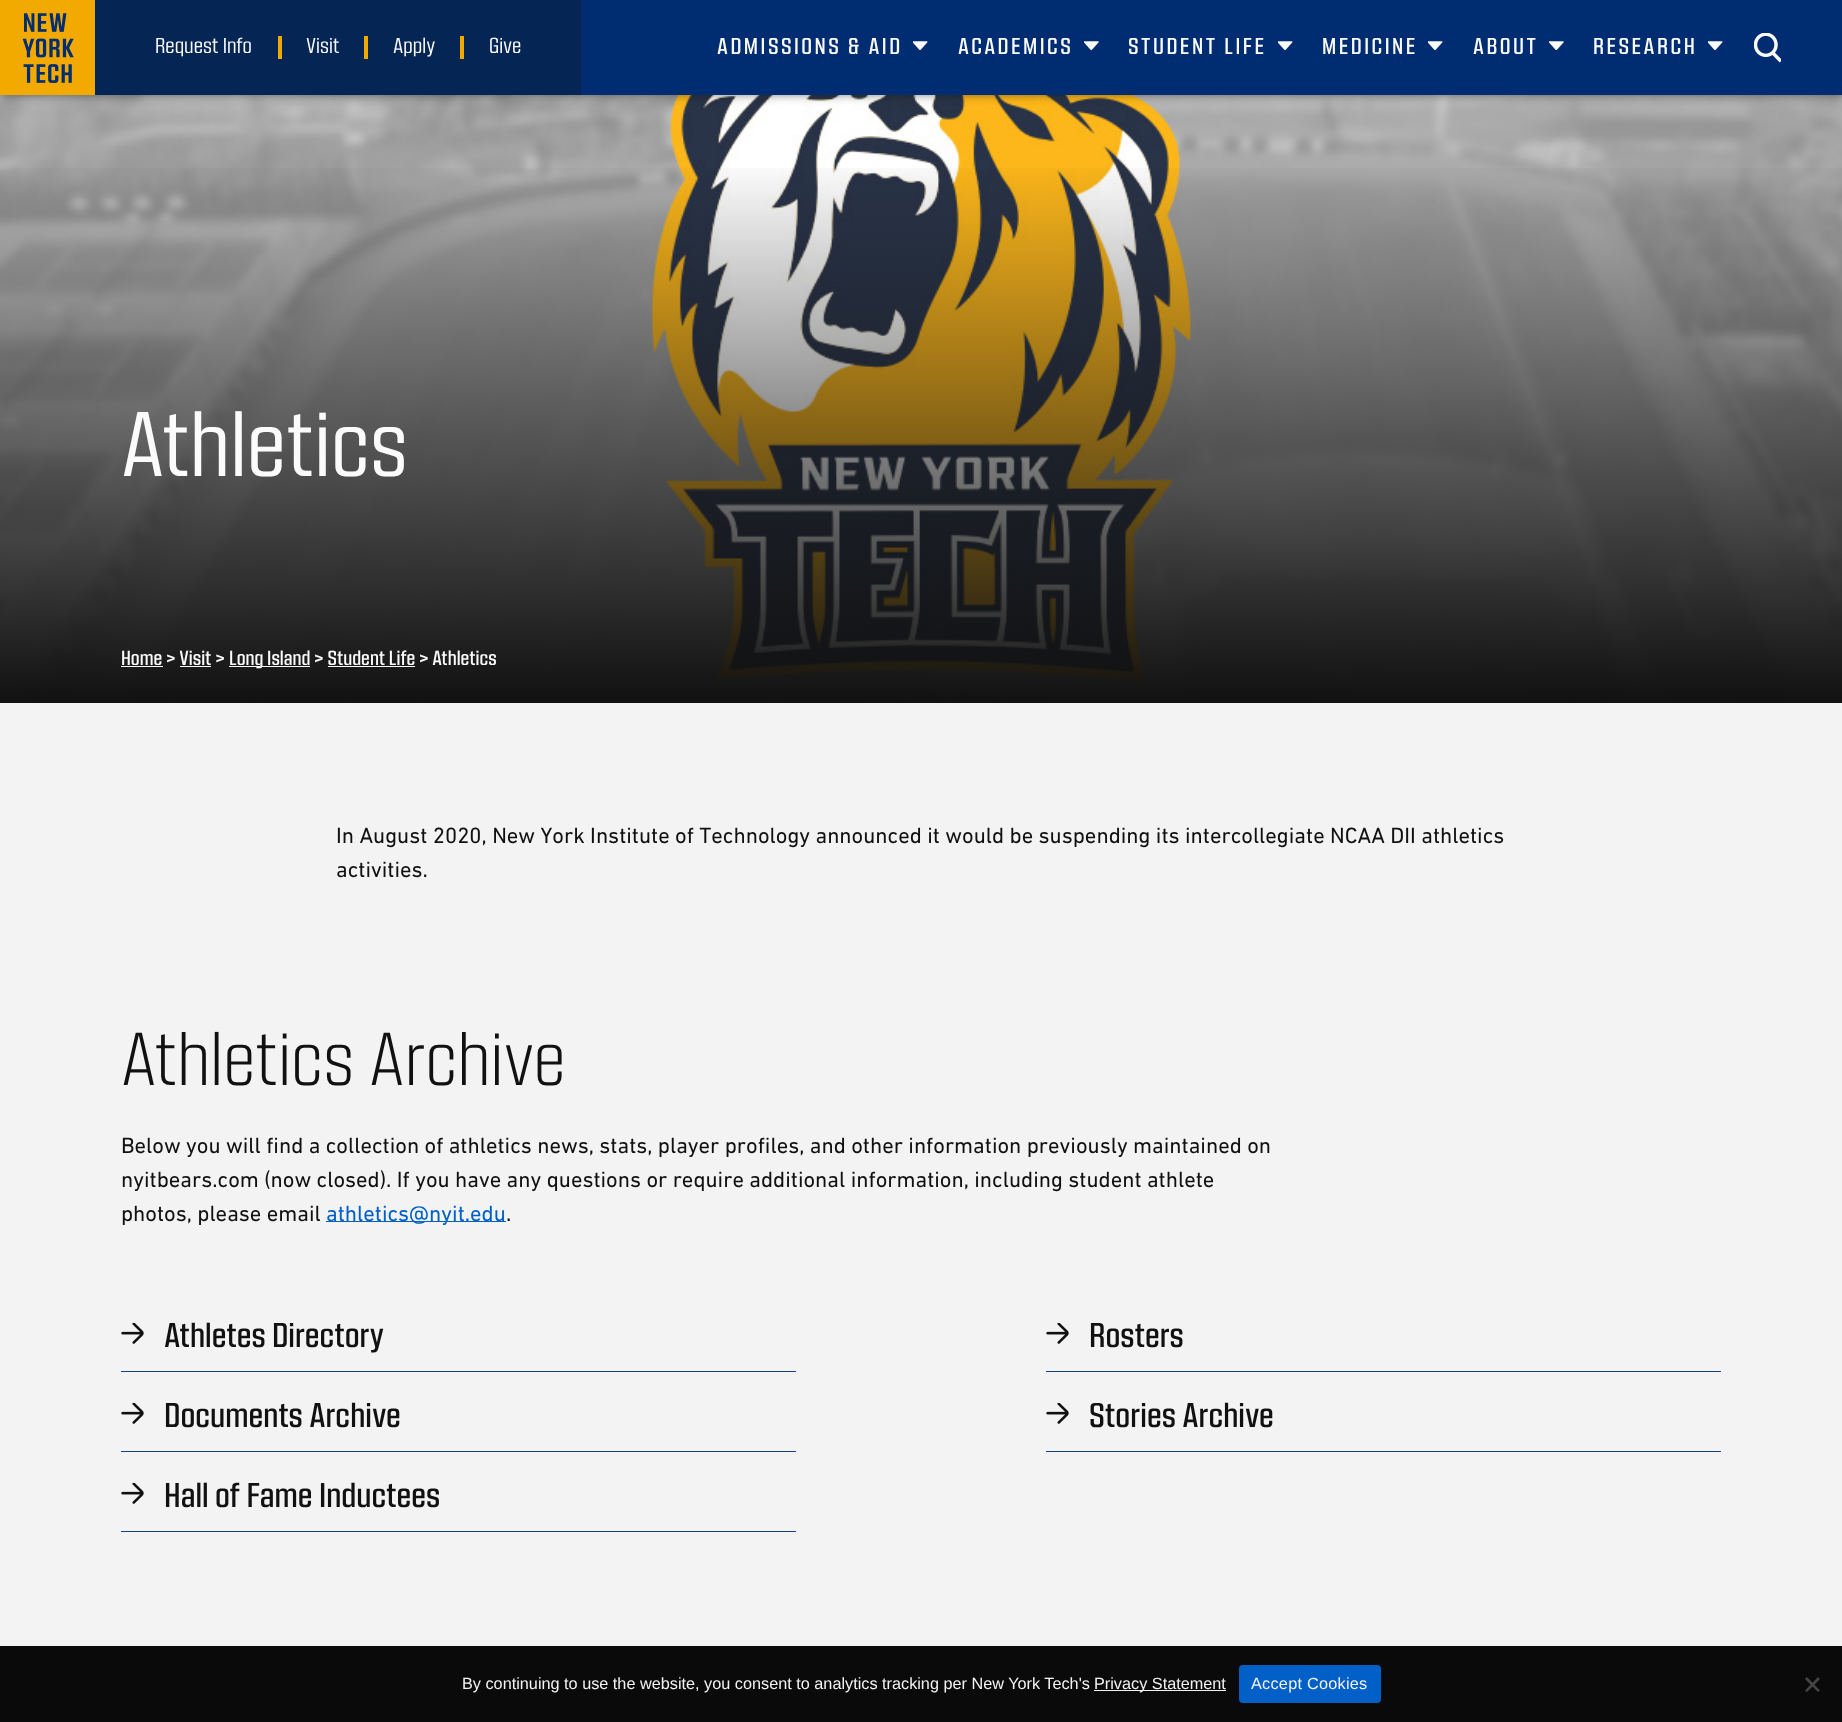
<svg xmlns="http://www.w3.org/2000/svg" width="1842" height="1722">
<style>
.a{font:21.25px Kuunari;fill:#fbfbfb}
.b{font:500 22.5px Kuunari;letter-spacing:2.5px;fill:#fbfbfb}
.c{font:90px Kuunari;fill:#fbfbfb}
.d{font:500 20px Kuunari;fill:#fbfbfb}
.e{font:22.5px DIN Next;fill:#111}
.f{font:300 73.75px Kuunari;fill:#111}
.g{font:22.5px DIN Next;fill:#0060c7}
.h{font:500 33.75px Kuunari;fill:#111}
.i{font:16.25px Liberation Sans;fill:#f3f3f3}
.j{font:16.25px Liberation Sans;letter-spacing:0.25px;fill:#f3f3f3}
</style>
<defs>
<linearGradient id="g1" gradientUnits="userSpaceOnUse" x1="921" y1="-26" x2="921" y2="703"><stop offset="0.25" stop-color="#111" stop-opacity="0"/><stop offset="1" stop-color="#111"/></linearGradient>
</defs>
<rect width="100%" height="100%" fill="#f3f3f3"/>
<image href="5.png" x="0" y="95" width="1842" height="605"/>
<path fill="#11111180" filter="blur(5px)" d="M0 0h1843v95H0z"/>
<image href="1.png" x="0" y="0" width="95" height="95"/>
<path fill="#002d72" d="M581 0h1261v95H581z"/>
<path fill="#052555" d="M95 0h486v95H95z"/>
<path fill="#f2a900" d="M278 36h4v23H278z"/>
<path fill="#f2a900" d="M364 36h4v23H364z"/>
<path fill="#f2a900" d="M460 36h4v23H460z"/>
<image href="2.png" x="913" y="41" width="15" height="9"/>
<image href="3.png" x="1084" y="41" width="15" height="9"/>
<image href="2.png" x="1278" y="41" width="15" height="9"/>
<image href="2.png" x="1428" y="41" width="15" height="9"/>
<image href="3.png" x="1549" y="41" width="15" height="9"/>
<image href="2.png" x="1708" y="41" width="15" height="9"/>
<image href="4.png" x="1754" y="33" width="27" height="30"/>
<path fill="url(#g1)" d="M0 168h1842v535H0z"/>
<path fill="#fbfbfb" d="M121 666h42v1H121z"/>
<path fill="#fbfbfb" d="M229 666h81v1H229z"/>
<path fill="#fbfbfb" d="M180 666h31v1H180z"/>
<path fill="#fbfbfb" d="M328 666h87v1H328z"/>
<path fill="#0060c7" d="M326 1221h180v1H326z"/>
<path fill="#18417f" d="M121 1371h675v1H121z"/>
<image href="6.png" x="121" y="1323" width="23" height="21"/>
<path fill="#18417f" d="M121 1451h675v1H121z"/>
<image href="6.png" x="121" y="1403" width="23" height="21"/>
<path fill="#18417f" d="M121 1531h675v1H121z"/>
<image href="6.png" x="121" y="1483" width="23" height="21"/>
<path fill="#18417f" d="M1046 1371h675v1H1046z"/>
<image href="6.png" x="1046" y="1323" width="23" height="21"/>
<path fill="#18417f" d="M1046 1451h675v1H1046z"/>
<image href="6.png" x="1046" y="1403" width="23" height="21"/>
<path fill="#0a0a0a" d="M0 1646h1842v76H0z"/>
<path fill="#f3f3f3" d="M1094 1690h132v1H1094z"/>
<rect fill="#0060c7" x="1239" y="1665" width="142" height="38" rx="4"/>
<path fill="#454545" d="M1818 1677l2 2l-13 13l-2-1.5z"/>
<path fill="#454545" d="M1805 1679l2-2l13 13.5l-2 1.5z"/>
<text class="a" x="155" y="53">Request Info</text>
<text class="a" x="306" y="53">Visit</text>
<text class="a" x="393" y="53">Apply</text>
<text class="a" x="489" y="53">Give</text>
<text class="b" x="717" y="54">ADMISSIONS &amp; AID</text>
<text class="b" x="958" y="54">ACADEMICS</text>
<text class="b" x="1128" y="54">STUDENT LIFE</text>
<text class="b" x="1322" y="54">MEDICINE</text>
<text class="b" x="1473" y="54">ABOUT</text>
<text class="b" x="1593" y="54">RESEARCH</text>
<text class="c" x="121" y="476">Athletics</text>
<text class="d" x="121" y="665">Home &gt; Visit &gt;</text>
<text class="d" x="229" y="665">Long Island &gt; Student Life &gt; Athletics</text>
<text class="e" x="336" y="843">In August 2020, New York Institute of Technology announced it would be suspending its intercollegiate NCAA DII athletics</text>
<text class="e" x="336" y="877">activities.</text>
<text class="f" x="121" y="1085">Athletics Archive</text>
<text class="e" x="121" y="1153">Below you will find a collection of athletics news, stats, player profiles, and other information previously maintained on</text>
<text class="e" x="121" y="1187">nyitbears.com (now closed). If you have any questions or require additional information, including student athlete</text>
<text class="e" x="121" y="1221">photos, please email</text>
<text class="g" x="326" y="1221">athletics@nyit.edu</text>
<text class="e" x="506" y="1221">.</text>
<text class="h" x="164" y="1347">Athletes Directory</text>
<text class="h" x="164" y="1427">Documents Archive</text>
<text class="h" x="164" y="1507">Hall of Fame Inductees</text>
<text class="h" x="1089" y="1347">Rosters</text>
<text class="h" x="1089" y="1427">Stories Archive</text>
<text class="i" x="462" y="1689">By continuing to use the website, you consent to analytics tracking per New York Tech's</text>
<text class="i" x="1094" y="1689">Privacy Statement</text>
<text class="j" x="1251" y="1689">Accept Cookies</text>
</svg>
